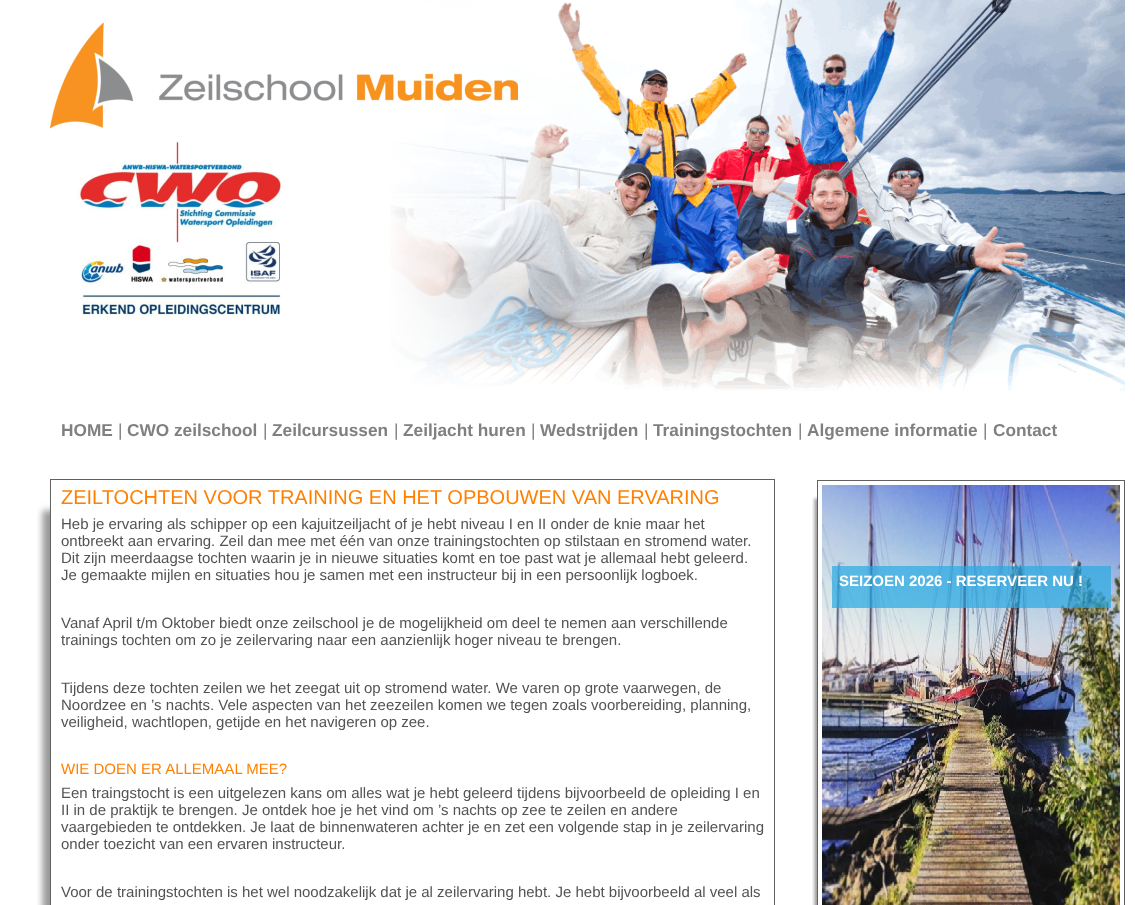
<svg xmlns="http://www.w3.org/2000/svg" width="1135" height="905">
<style>
.a{font:bold 17.25px Liberation Sans;fill:#808080}
.b{font:17.25px Liberation Sans;fill:#808080}
.c{font:20px Liberation Sans;fill:#ff8000}
.d{font:15px Liberation Sans;fill:#535353}
.e{font:15px Liberation Sans;fill:#ff8000}
.f{font:bold 15px Liberation Sans;fill:#fff}
</style>
<rect width="100%" height="100%" fill="#fff"/>
<image href="2.png" x="390" y="0" width="735" height="391"/>
<image href="1.png" x="50" y="22" width="468" height="107"/>
<image href="3.png" x="77" y="141" width="204" height="177"/>
<image href="4.png" x="37" y="479" width="738" height="426"/>
<image href="5.png" x="812" y="480" width="313" height="425"/>
<image href="6.png" x="822" y="485" width="298" height="420"/>
<path fill="#28aae3b3" d="M832 566h279v42H832z"/>
<text class="a" x="61" y="436">HOME</text>
<text class="b" x="118" y="436">|</text>
<text class="a" x="127" y="436">CWO zeilschool</text>
<text class="b" x="263" y="436">|</text>
<text class="a" x="272" y="436">Zeilcursussen</text>
<text class="b" x="394" y="436">|</text>
<text class="a" x="403" y="436">Zeiljacht huren</text>
<text class="b" x="531" y="436">|</text>
<text class="a" x="540" y="436">Wedstrijden</text>
<text class="b" x="644" y="436">|</text>
<text class="a" x="653" y="436">Trainingstochten</text>
<text class="b" x="798" y="436">|</text>
<text class="a" x="807" y="436">Algemene informatie</text>
<text class="b" x="983" y="436">|</text>
<text class="a" x="993" y="436">Contact</text>
<text class="c" x="61" y="504">ZEILTOCHTEN VOOR TRAINING EN HET OPBOUWEN VAN ERVARING</text>
<text class="d" x="61" y="529">Heb je ervaring als schipper op een kajuitzeiljacht of je hebt niveau I en II onder de knie maar het</text>
<text class="d" x="61" y="546">ontbreekt aan ervaring. Zeil dan mee met één van onze trainingstochten op stilstaan en stromend water.</text>
<text class="d" x="61" y="563">Dit zijn meerdaagse tochten waarin je in nieuwe situaties komt en toe past wat je allemaal hebt geleerd.</text>
<text class="d" x="61" y="580">Je gemaakte mijlen en situaties hou je samen met een instructeur bij in een persoonlijk logboek.</text>
<text class="d" x="61" y="628">Vanaf April t/m Oktober biedt onze zeilschool je de mogelijkheid om deel te nemen aan verschillende</text>
<text class="d" x="61" y="645">trainings tochten om zo je zeilervaring naar een aanzienlijk hoger niveau te brengen.</text>
<text class="d" x="61" y="693">Tijdens deze tochten zeilen we het zeegat uit op stromend water. We varen op grote vaarwegen, de</text>
<text class="d" x="61" y="710">Noordzee en ’s nachts. Vele aspecten van het zeezeilen komen we tegen zoals voorbereiding, planning,</text>
<text class="d" x="61" y="727">veiligheid, wachtlopen, getijde en het navigeren op zee.</text>
<text class="e" x="61" y="774">WIE DOEN ER ALLEMAAL MEE?</text>
<text class="d" x="61" y="798">Een traingstocht is een uitgelezen kans om alles wat je hebt geleerd tijdens bijvoorbeeld de opleiding I en</text>
<text class="d" x="61" y="815">II in de praktijk te brengen. Je ontdek hoe je het vind om ’s nachts op zee te zeilen en andere</text>
<text class="d" x="61" y="832">vaargebieden te ontdekken. Je laat de binnenwateren achter je en zet een volgende stap in je zeilervaring</text>
<text class="d" x="61" y="849">onder toezicht van een ervaren instructeur.</text>
<text class="d" x="61" y="897">Voor de trainingstochten is het wel noodzakelijk dat je al zeilervaring hebt. Je hebt bijvoorbeeld al veel als</text>
<text class="f" x="839" y="586">SEIZOEN 2026 - RESERVEER NU !</text>
</svg>
